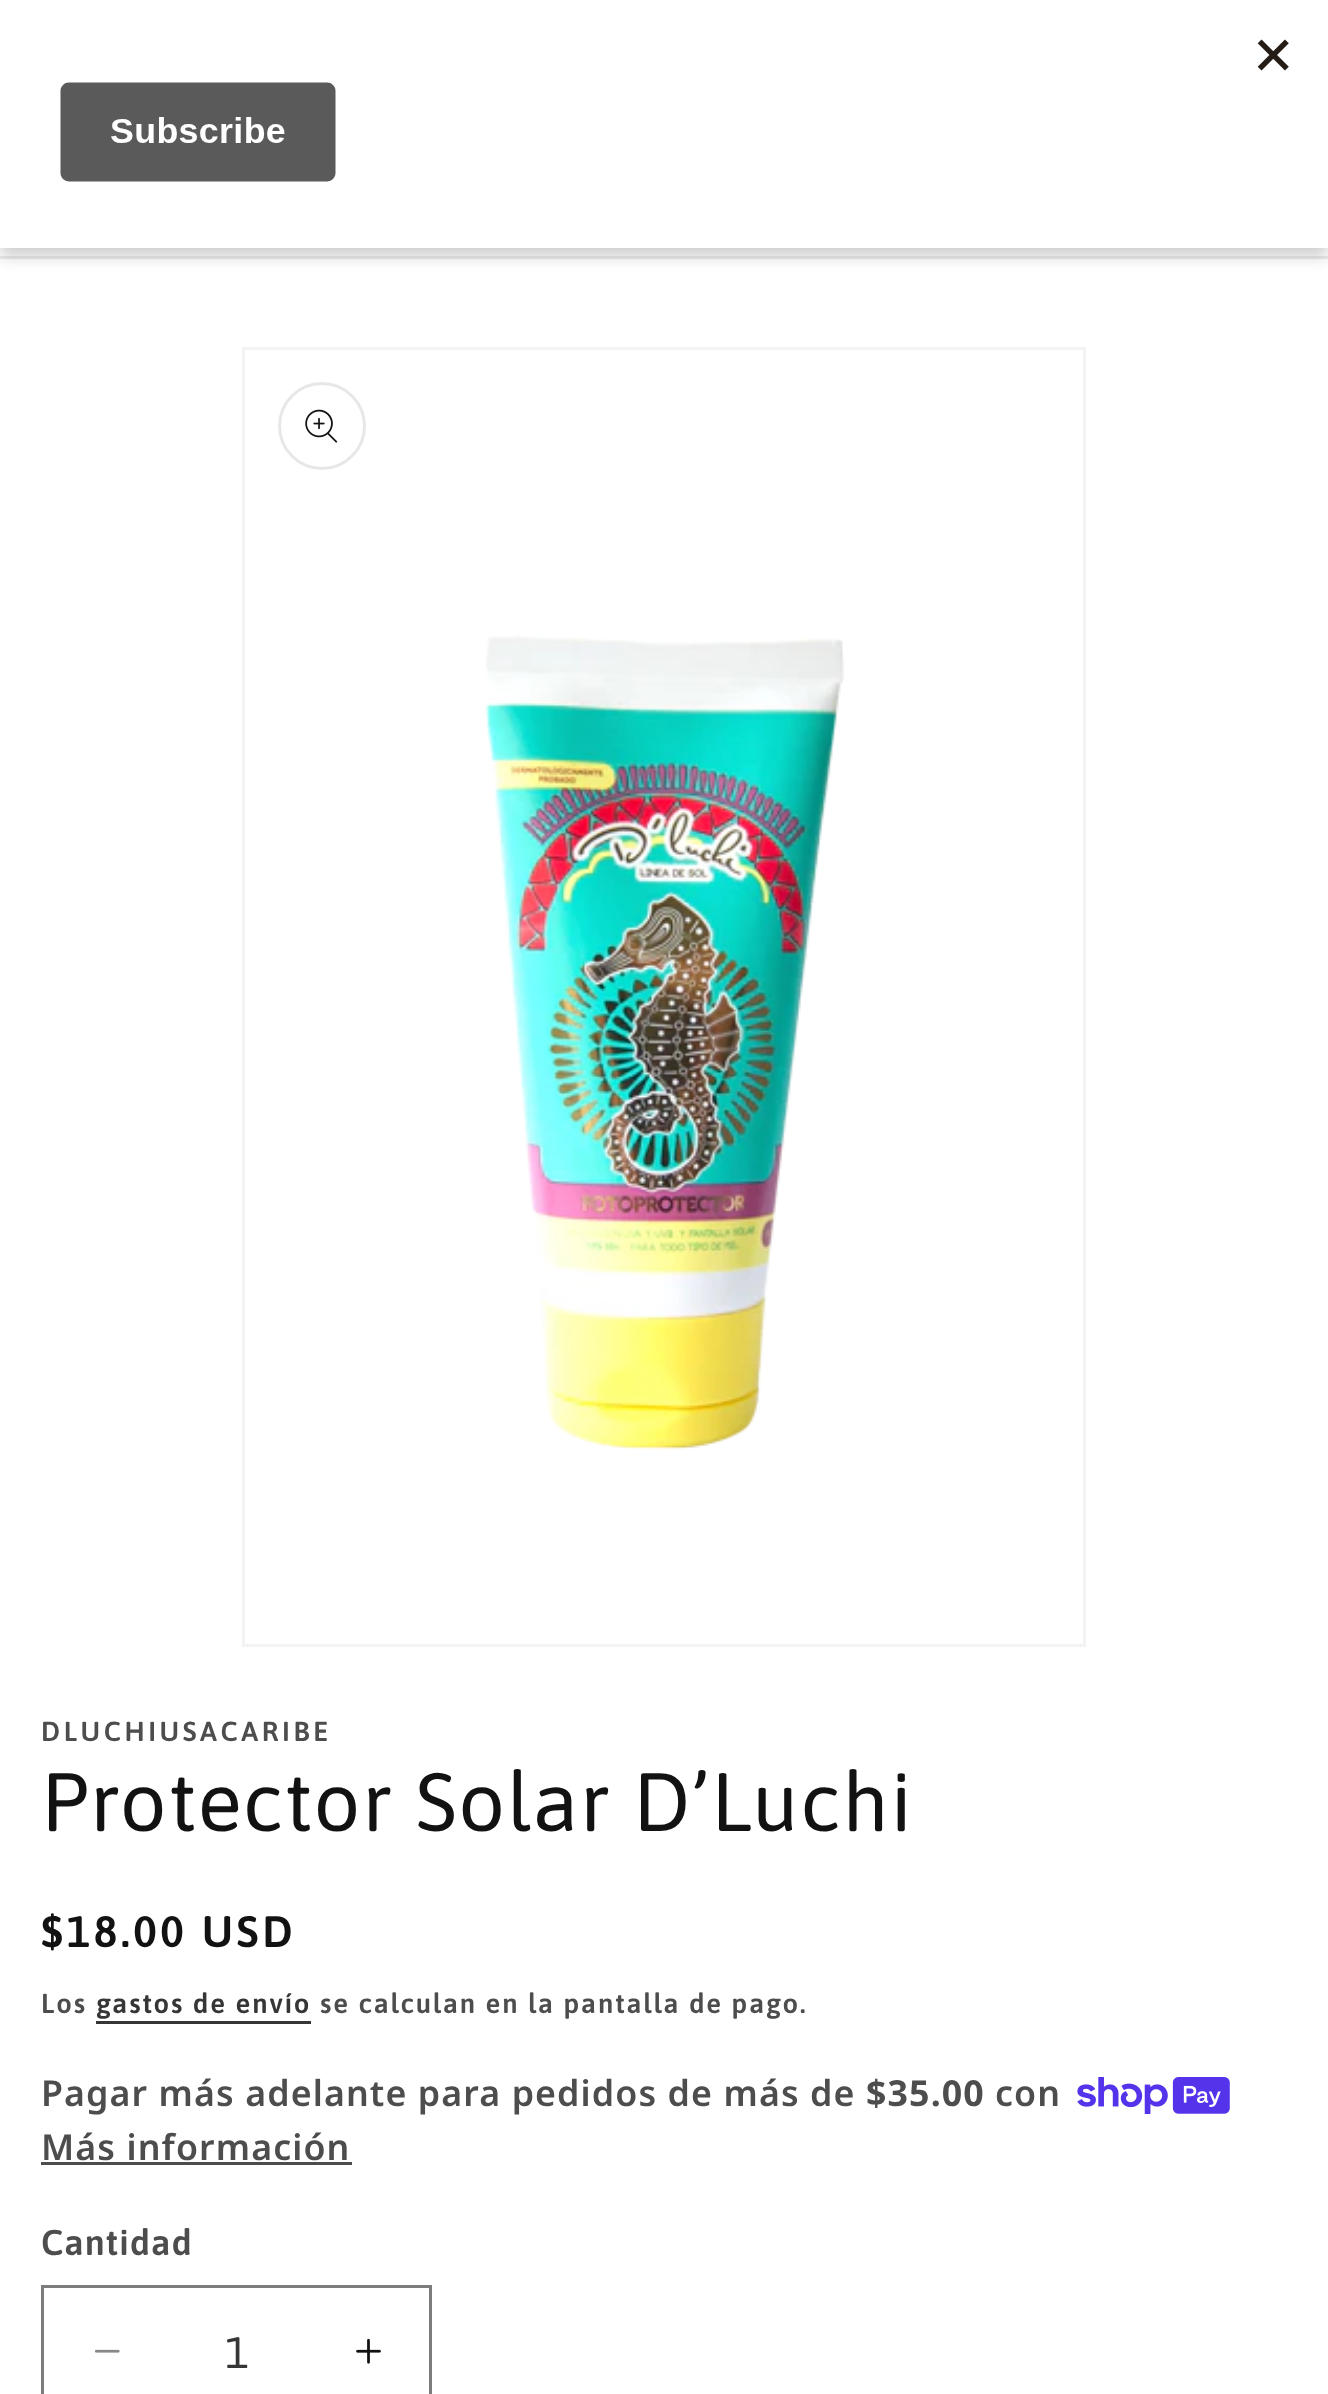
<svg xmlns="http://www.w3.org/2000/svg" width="1328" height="2394">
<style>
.a{font:600 27.5px Asap;letter-spacing:3.6px;fill:#4d4d4d}
.b{font:82.5px Asap;letter-spacing:1.65px;fill:#121212}
.c{font:600 44px Asap;letter-spacing:3.6px;fill:#121212}
.d{font:600 27.5px Asap;letter-spacing:1.9px;fill:#4d4d4d}
.e{font:600 27.5px Asap;letter-spacing:1.9px;fill:#363636}
.f{font:600 35.75px Noto Sans;letter-spacing:1.1px;fill:#4d4d4d}
.g{font:bold 35.75px Noto Sans;letter-spacing:1.1px;fill:#4d4d4d}
.h{font:600 35.75px Asap;letter-spacing:1.1px;fill:#4d4d4d}
.i{font:44px Asap;fill:#363636}
</style>
<rect width="100%" height="100%" fill="#fff"/>
<path fill="#ececec" d="M0 256h1328v3H0z"/>
<path fill="#00000033" filter="blur(8px)" d="M0 8h1328v248H0z"/>
<path fill="#fff" d="M0 0h1328v248H0z"/>
<image href="1.png" x="60" y="39" width="1229" height="143"/>
<path fill="none" stroke="#f3f3f3" stroke-width="3" d="M243.5 348.5h841v1297H243.5z"/>
<circle fill="none" stroke="#e7e7e7" stroke-width="3" cx="322" cy="426" r="42.5"/>
<image href="2.png" x="305" y="409" width="33" height="34"/>
<image href="3.png" x="485" y="635" width="360" height="815"/>
<path fill="#363636" d="M96 2021h215v3H96z"/>
<image href="4.png" x="1077" y="2077" width="153" height="37"/>
<path fill="#4d4d4d" d="M41 2162h311v3H41z"/>
<image href="5.png" x="94" y="2349" width="26" height="4"/>
<image href="6.png" x="356" y="2338" width="25" height="26"/>
<path fill="none" stroke="#7d7d7d" stroke-width="3" d="M42.5 2286.5h388v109H42.5z"/>
<text class="a" x="41" y="1741">DLUCHIUSACARIBE</text>
<text class="b" x="41" y="1831">Protector Solar D’Luchi</text>
<text class="c" x="41" y="1947">$18.00 USD</text>
<text class="d" x="41" y="2013">Los</text>
<text class="e" x="96" y="2013">gastos de envío</text>
<text class="d" x="320" y="2013">se calculan en la pantalla de pago.</text>
<text class="f" x="41" y="2106">Pagar más adelante para pedidos de más de</text>
<text class="g" x="866" y="2106">$35.00</text>
<text class="f" x="995" y="2106">con</text>
<text class="f" x="41" y="2160">Más información</text>
<text class="h" x="41" y="2255">Cantidad</text>
<text class="i" x="225" y="2368">1</text>
</svg>
